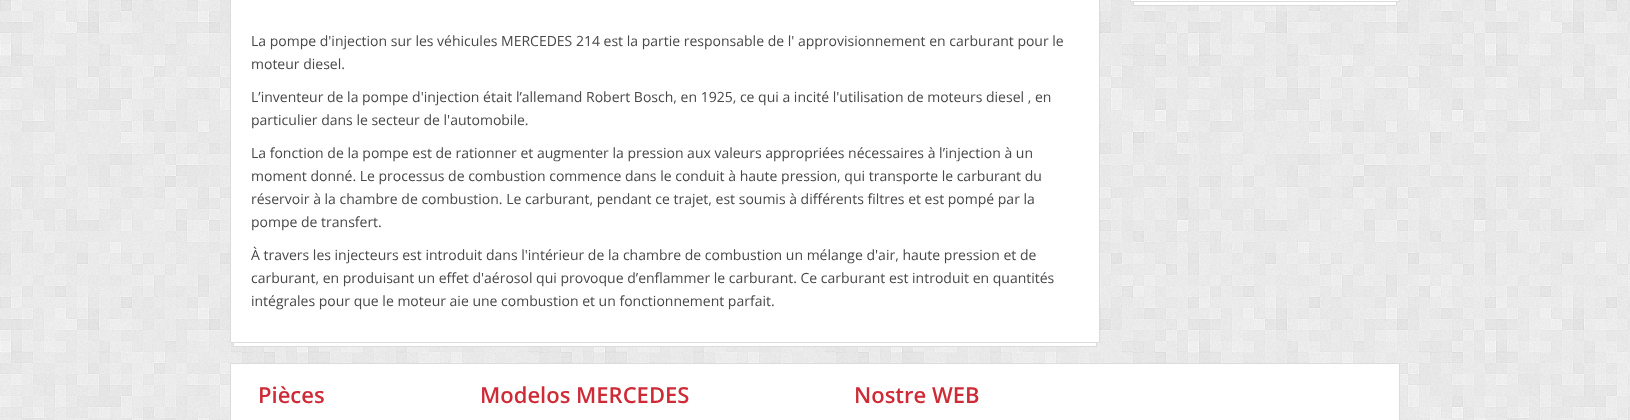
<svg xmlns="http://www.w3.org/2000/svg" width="1630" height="420">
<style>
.a{font:14px Open Sans;fill:#494848}
.b{font:600 22px Open Sans;fill:#ce2b37}
</style>
<rect width="100%" height="100%" fill="#fff"/>
<image href="1.png" x="0" y="0" width="1630" height="420"/>
<path fill="#fff" stroke="#dcdcdc" d="M1130.5 -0.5h269v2H1130.5z"/>
<path fill="#fff" d="M1133 2h264v3H1133z"/>
<path fill="#dcdcdc" d="M1396 2h1v4H1396z"/>
<path fill="#dcdcdc" d="M1133 5h264v1H1133z"/>
<path fill="#dcdcdc" d="M1133 2h1v4H1133z"/>
<path fill="#fff" stroke="#dcdcdc" d="M230.5 -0.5h869v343H230.5z"/>
<path fill="#fff" d="M233 343h864v3H233z"/>
<path fill="#dcdcdc" d="M1096 343h1v4H1096z"/>
<path fill="#dcdcdc" d="M233 346h864v1H233z"/>
<path fill="#dcdcdc" d="M233 343h1v4H233z"/>
<path fill="#fff" stroke="#dcdcdc" d="M230.5 363.5h1169v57H230.5z"/>
<text class="a" x="251" y="46">La pompe d'injection sur les véhicules MERCEDES 214 est la partie responsable de l' approvisionnement en carburant pour le</text>
<text class="a" x="251" y="69">moteur diesel.</text>
<text class="a" x="251" y="102">L’inventeur de la pompe d'injection était l’allemand Robert Bosch, en 1925, ce qui a incité l'utilisation de moteurs diesel , en</text>
<text class="a" x="251" y="125">particulier dans le secteur de l'automobile.</text>
<text class="a" x="251" y="158">La fonction de la pompe est de rationner et augmenter la pression aux valeurs appropriées nécessaires à l’injection à un</text>
<text class="a" x="251" y="181">moment donné. Le processus de combustion commence dans le conduit à haute pression, qui transporte le carburant du</text>
<text class="a" x="251" y="204">réservoir à la chambre de combustion. Le carburant, pendant ce trajet, est soumis à différents filtres et est pompé par la</text>
<text class="a" x="251" y="227">pompe de transfert.</text>
<text class="a" x="251" y="260">À travers les injecteurs est introduit dans l'intérieur de la chambre de combustion un mélange d'air, haute pression et de</text>
<text class="a" x="251" y="283">carburant, en produisant un effet d'aérosol qui provoque d’enflammer le carburant. Ce carburant est introduit en quantités</text>
<text class="a" x="251" y="306">intégrales pour que le moteur aie une combustion et un fonctionnement parfait.</text>
<text class="b" x="258" y="403">Pièces</text>
<text class="b" x="480" y="403">Modelos MERCEDES</text>
<text class="b" x="854" y="403">Nostre WEB</text>
</svg>
